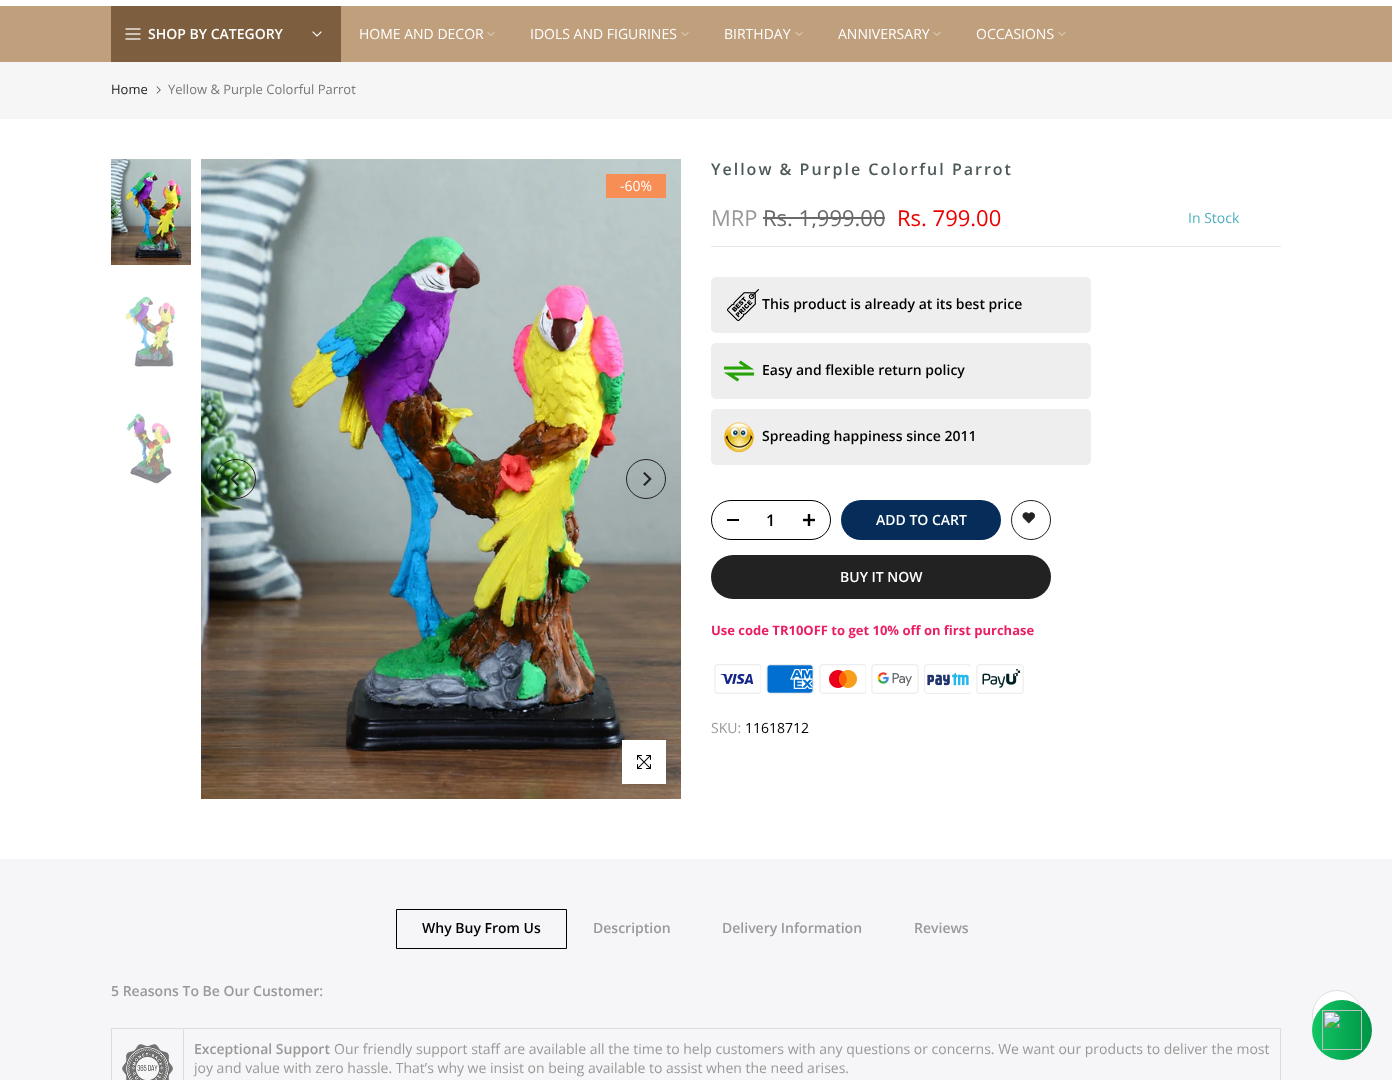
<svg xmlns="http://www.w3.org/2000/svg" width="1392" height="1080">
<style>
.a{font:600 14px Open Sans;fill:#fff}
.b{font:14px Open Sans;fill:#fff}
.c{font:13px Open Sans;fill:#222}
.d{font:13px Open Sans;fill:#777}
.e{font:600 16px Open Sans;letter-spacing:2px;fill:#4d5959}
.f{font:22px Open Sans;fill:#999}
.g{font:22px Open Sans;fill:#696969}
.h{font:22px Open Sans;fill:#ec0101}
.i{font:14px Open Sans;fill:#4eb0be}
.j{font:600 14px Open Sans;fill:#000}
.k{font:600 16px Open Sans;fill:#000}
.l{font:bold 13px Open Sans;fill:#ea1e63}
.m{font:14px Open Sans;fill:#999}
.n{font:14px Open Sans;fill:#000}
.o{font:600 14px Open Sans;fill:#999}
</style>
<defs>
<clipPath id="clip1"><path d="M763 206h425v22H763z"/></clipPath>
</defs>
<rect width="100%" height="100%" fill="#fff"/>
<path fill="#c09f7d" d="M0 6h1392v56H0z"/>
<path fill="#7d5e3e" d="M111 6h230v56H111z"/>
<image href="1.png" x="125" y="28" width="16" height="12"/>
<path fill="none" stroke="#fff" stroke-width="1.1" stroke-linecap="square" d="M321 32l-4 4l-4-4"/>
<path fill="none" stroke="#f2ece5" stroke-width="0.8" stroke-linecap="square" d="M494 32.5l-3 3l-3-3"/>
<path fill="none" stroke="#f2ece5" stroke-width="0.8" stroke-linecap="square" d="M688 32.5l-3 3l-3-3"/>
<path fill="none" stroke="#f2ece5" stroke-width="0.8" stroke-linecap="square" d="M802 32.5l-3 3l-3-3"/>
<path fill="none" stroke="#f2ece5" stroke-width="0.8" stroke-linecap="square" d="M940 32.5l-3 3l-3-3"/>
<path fill="none" stroke="#f2ece5" stroke-width="0.8" stroke-linecap="square" d="M1065 32.5l-3 3l-3-3"/>
<path fill="#f6f6f6" d="M0 62h1392v57H0z"/>
<image href="2.png" x="156" y="86" width="5" height="8"/>
<image href="3.png" x="111" y="159" width="80" height="106"/>
<image href="4.png" x="124" y="296" width="52" height="71"/>
<image href="5.png" x="126" y="413" width="46" height="71"/>
<image href="6.png" x="201" y="159" width="480" height="640"/>
<circle fill="none" stroke="#222" cx="236" cy="479" r="19.5"/>
<image href="7.png" x="230" y="472" width="9" height="14"/>
<circle fill="none" stroke="#222" cx="646" cy="479" r="19.5"/>
<image href="8.png" x="643" y="472" width="9" height="14"/>
<path fill="#f68e56" d="M606 174h60v24H606z"/>
<path fill="#00000017" filter="blur(2.5px)" d="M622 740h44v44H622z"/>
<path fill="#fff" d="M622 740h44v44H622z"/>
<image href="9.png" x="637" y="755" width="14" height="14"/>
<path fill="#e5e5e5" d="M711 246h570v1H711z"/>
<path fill="#696969" d="M763 217h122v2H763z"/>
<rect fill="#eee" x="711" y="277" width="380" height="56" rx="5"/>
<image href="10.png" x="727" y="289" width="32" height="32"/>
<rect fill="#eee" x="711" y="343" width="380" height="56" rx="5"/>
<image href="11.png" x="723" y="360" width="32" height="22"/>
<rect fill="#eee" x="711" y="409" width="380" height="56" rx="5"/>
<image href="12.png" x="724" y="422" width="30" height="31"/>
<rect fill="none" stroke="#000" x="711.5" y="500.5" width="119" height="39" rx="19.5"/>
<path fill="#000" d="M727 519h12v2H727z"/>
<image href="13.png" x="803" y="514" width="12" height="12"/>
<rect fill="#062c59" x="841" y="500" width="160" height="40" rx="20"/>
<circle fill="none" stroke="#222" cx="1031" cy="520" r="19.5"/>
<image href="14.png" x="1022" y="512" width="13" height="12"/>
<rect fill="#222" x="711" y="555" width="340" height="44" rx="22"/>
<image href="15.png" x="714" y="664" width="47" height="30"/>
<image href="16.png" x="766" y="664" width="48" height="30"/>
<image href="17.png" x="819" y="664" width="47" height="30"/>
<image href="18.png" x="871" y="664" width="48" height="30"/>
<image href="19.png" x="924" y="664" width="47" height="30"/>
<image href="20.png" x="976" y="664" width="48" height="30"/>
<path fill="#f6f6f8" d="M0 859h1392v221H0z"/>
<path fill="none" stroke="#000" d="M396.5 909.5h170v39H396.5z"/>
<path fill="#ddd" d="M111 1028h1170v1H111z"/>
<path fill="#ddd" d="M1280 1028h1v52H1280z"/>
<path fill="#ddd" d="M111 1028h1v52H111z"/>
<path fill="#ddd" d="M183 1028h1v52H183z"/>
<image href="21.png" x="122" y="1044" width="51" height="36"/>
<circle fill="#fff" stroke="#ddd" cx="1337" cy="1015" r="24.5"/>
<image href="22.png" x="1312" y="1000" width="60" height="60"/>
<text class="a" x="148" y="39">SHOP BY CATEGORY</text>
<text class="b" x="359" y="39">HOME AND DECOR</text>
<text class="b" x="530" y="39">IDOLS AND FIGURINES</text>
<text class="b" x="724" y="39">BIRTHDAY</text>
<text class="b" x="838" y="39">ANNIVERSARY</text>
<text class="b" x="976" y="39">OCCASIONS</text>
<text class="c" x="111" y="94">Home</text>
<text class="d" x="168" y="94">Yellow &amp; Purple Colorful Parrot</text>
<text class="b" x="620" y="191">-60%</text>
<text class="e" x="711" y="175">Yellow &amp; Purple Colorful Parrot</text>
<text class="f" x="711" y="226">MRP</text>
<g clip-path="url(#clip1)">
<text class="g" x="763" y="226">Rs. 1,999.00</text>
</g>
<text class="h" x="897" y="226">Rs. 799.00</text>
<text class="i" x="1188" y="223">In Stock</text>
<text class="j" x="762" y="309">This product is already at its best price</text>
<text class="j" x="762" y="375">Easy and flexible return policy</text>
<text class="j" x="762" y="441">Spreading happiness since 2011</text>
<text class="k" x="766" y="526">1</text>
<text class="a" x="876" y="525">ADD TO CART</text>
<text class="a" x="840" y="582">BUY IT NOW</text>
<text class="l" x="711" y="635">Use code TR10OFF to get 10% off on first purchase</text>
<text class="m" x="711" y="733">SKU:</text>
<text class="n" x="745" y="733">11618712</text>
<text class="j" x="422" y="933">Why Buy From Us</text>
<text class="o" x="593" y="933">Description</text>
<text class="o" x="722" y="933">Delivery Information</text>
<text class="o" x="914" y="933">Reviews</text>
<text class="o" x="111" y="996">5 Reasons To Be Our Customer:</text>
<text class="o" x="194" y="1054">Exceptional Support</text>
<text class="m" x="334" y="1054">Our friendly support staff are available all the time to help customers with any questions or concerns. We want our products to deliver the most</text>
<text class="m" x="194" y="1073">joy and value with zero hassle. That’s why we insist on being available to assist when the need arises.</text>
</svg>
